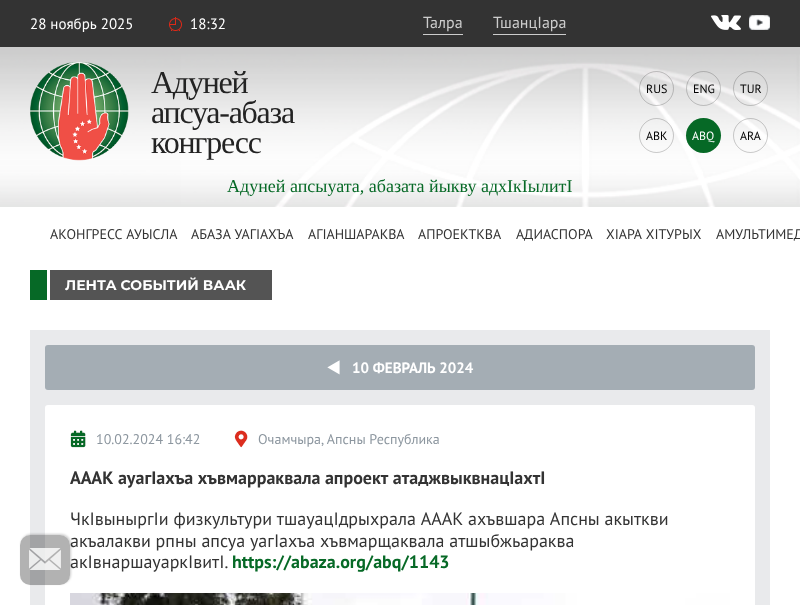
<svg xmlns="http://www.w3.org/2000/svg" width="800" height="605">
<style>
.a{font:15px PT Sans;fill:#fff}
.b{font:16px PT Sans;fill:#ccc}
.c{font:32px Liberation Serif;letter-spacing:-1.25px;fill:#232323}
.d{font:18px Liberation Serif;fill:#066926}
.e{font:12px PT Sans;fill:#000}
.f{font:12px PT Sans;fill:#fff}
.g{font:14px PT Sans;fill:#333}
.h{font:bold 14px Montserrat;fill:#fff}
.i{font:bold 15px PT Sans;fill:#fff}
.j{font:14px PT Sans;fill:#8c969f}
.k{font:bold 18px PT Sans;fill:#333}
.l{font:18px PT Sans;fill:#333}
.m{font:bold 18px PT Sans;fill:#066926}
</style>
<defs>
<clipPath id="clip1"><path d="M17 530h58v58h-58zm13 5h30c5.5 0 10 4.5 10 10v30c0 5.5-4.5 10-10 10h-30c-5.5 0-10-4.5-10-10v-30c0-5.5 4.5-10 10-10z" clip-rule="evenodd"/></clipPath>
</defs>
<rect width="100%" height="100%" fill="#333"/>
<image href="1.png" x="169" y="17" width="13" height="14"/>
<path fill="#ccc" d="M423 34h40v1H423z"/>
<path fill="#ccc" d="M493 34h73v1H493z"/>
<image href="2.png" x="711" y="15" width="30" height="15"/>
<image href="3.png" x="749" y="15" width="21" height="15"/>
<path fill="#fff" d="M0 207h800v398H0z"/>
<image href="4.png" x="0" y="47" width="800" height="160"/>
<image href="5.png" x="30" y="62" width="99" height="99"/>
<circle fill="none" stroke="#00000033" cx="656.5" cy="88.5" r="17"/>
<circle fill="none" stroke="#00000033" cx="703.5" cy="88.5" r="17"/>
<circle fill="none" stroke="#00000033" cx="750.5" cy="88.5" r="17"/>
<circle fill="none" stroke="#00000033" cx="656.5" cy="135.5" r="17"/>
<circle fill="#066926" cx="703.5" cy="135.5" r="17.5"/>
<circle fill="none" stroke="#00000033" cx="750.5" cy="135.5" r="17"/>
<path fill="#066926" d="M30 270h17v30H30z"/>
<path fill="#545454" d="M50 270h222v30H50z"/>
<path fill="#e9eaec" d="M30 330h740v275H30z"/>
<rect fill="#a4adb4" x="45" y="345" width="710" height="45" rx="3"/>
<image href="6.png" x="327" y="360" width="13" height="15"/>
<rect fill="#fff" x="45" y="405" width="710" height="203" rx="3"/>
<image href="7.png" x="70" y="430" width="16" height="18"/>
<image href="8.png" x="234" y="430" width="14" height="18"/>
<image href="9.png" x="70" y="593" width="660" height="12"/>
<g clip-path="url(#clip1)">
<rect fill="#00000033" filter="blur(1px)" x="21" y="534" width="50" height="50" rx="10"/>
</g>
<rect fill="#0000004d" x="20" y="535" width="50" height="50" rx="10"/>
<image href="10.png" x="29" y="548" width="32" height="22"/>
<text class="a" x="30" y="29">28 ноябрь 2025</text>
<text class="a" x="190" y="29">18:32</text>
<text class="b" x="423" y="28">Талра</text>
<text class="b" x="493" y="28">ТшанцIара</text>
<text class="c" x="151" y="93">Адуней</text>
<text class="c" x="151" y="123">апсуа-абаза</text>
<text class="c" x="151" y="153">конгресс</text>
<text class="d" x="227" y="192">Адуней апсыуата, абазата йыкву адхIкIылитI</text>
<text class="e" x="646" y="93">RUS</text>
<text class="e" x="693" y="93">ENG</text>
<text class="e" x="740" y="93">TUR</text>
<text class="e" x="646" y="140">ABK</text>
<text class="f" x="692" y="140">ABQ</text>
<text class="e" x="740" y="140">ARA</text>
<text class="g" x="50" y="239">АКОНГРЕСС АУЫСЛА</text>
<text class="g" x="191" y="239">АБАЗА УАГIАХЪА</text>
<text class="g" x="308" y="239">АГIАНШАРАКВА</text>
<text class="g" x="418" y="239">АПРОЕКТКВА</text>
<text class="g" x="516" y="239">АДИАСПОРА</text>
<text class="g" x="606" y="239">ХIАРА ХIТУРЫХ</text>
<text class="g" x="716" y="239">АМУЛЬТИМЕД</text>
<text class="h" x="65" y="290">ЛЕНТА СОБЫТИЙ ВААК</text>
<text class="i" x="352" y="373">10 ФЕВРАЛЬ 2024</text>
<text class="j" x="96" y="444">10.02.2024 16:42</text>
<text class="j" x="258" y="444">Очамчыра, Апсны Республика</text>
<text class="k" x="70" y="484">АААК ауагIахъа хъвмарраквала апроект атаджвыквнацIахтI</text>
<text class="l" x="70" y="525">ЧкIвыныргIи физкультури тшауацIдрыхрала АААК ахъвшара Апсны акыткви</text>
<text class="l" x="70" y="547">акъалакви рпны апсуа уагIахъа хъвмарщаквала атшыбжьараква</text>
<text class="l" x="70" y="568">акIвнаршауаркIвитI.</text>
<text class="m" x="232" y="568">https://abaza.org/abq/1143</text>
</svg>
